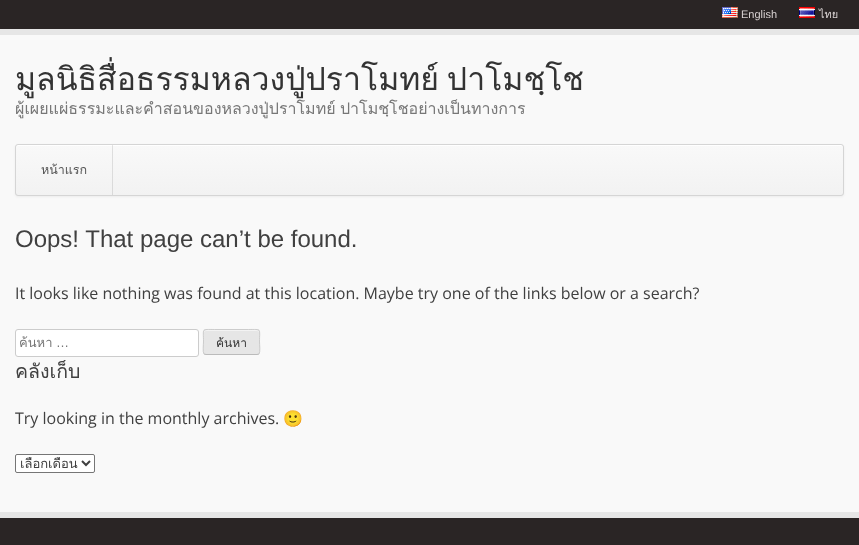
<svg xmlns="http://www.w3.org/2000/svg" width="859" height="545">
<style>
.a{font:11px Liberation Sans;fill:#d9d3d3}
.b{font:11px Loma;fill:#d9d3d3}
.c{font:32px Loma;fill:#333}
.d{font:16px Loma;fill:#777}
.e{font:12.5px Loma;fill:#555}
.f{font:24px Liberation Sans;fill:#404040}
.g{font:16px Open Sans;fill:#404040}
.h{font:13px Loma;fill:#777}
.i{font:13px Liberation Sans;fill:#777}
.j{font:12px Loma;fill:#333}
.k{font:19.5px Loma;fill:#404040}
.l{font:16px Noto Color Emoji;fill:#404040}
.m{font:13px Loma;fill:#404040}
</style>
<defs>
<linearGradient id="g1" gradientUnits="userSpaceOnUse" x1="430" y1="145" x2="430" y2="195"><stop offset="0" stop-color="#f9f9f9"/><stop offset="1" stop-color="#f2f2f2"/></linearGradient>
<clipPath id="clip1"><path d="M19 332h163v21H19z"/></clipPath>
<clipPath id="clip2"><path d="M20 455h58v17H20z"/></clipPath>
</defs>
<rect width="100%" height="100%" fill="#f9f9f9"/>
<path fill="#e6e6e6" d="M0 29h859v6H0z"/>
<path fill="#2a2525" d="M0 0h859v29H0z"/>
<image href="1.png" x="722" y="7" width="16" height="11"/>
<image href="2.png" x="799" y="7" width="16" height="11"/>
<rect fill="#0000000d" filter="blur(1px)" x="15" y="145" width="829" height="52" rx="3"/>
<rect fill="url(#g1)" x="16" y="145" width="827" height="50" rx="2"/>
<path fill="#fff" d="M18 146h823c1 0 2 1 2 2c0-1 0-3-2-3h-823c-2 0-2 2-2 3c0-1 1-2 2-2z"/>
<rect fill="none" stroke="#d5d5d5" x="15.5" y="144.5" width="828" height="51" rx="2.5"/>
<path fill="#0000001a" d="M112 145h1v50H112z"/>
<rect fill="#fff" stroke="#ccc" x="15.5" y="329.5" width="183" height="27" rx="2.5"/>
<rect fill="#e6e6e6" x="203" y="329" width="57" height="26" rx="3"/>
<path fill="#f3f3f3" d="M206 331h51c1 0 2 1 2 2c0-5-7-3-11-3h-34c-3 0-10-2-10 3c0-1 1-2 2-2z"/>
<path fill="none" stroke="#bbb" d="M259 354l-2 .5h-51l-2-.5"/>
<path fill="none" stroke="#ccc" d="M204 354c-1.5-2-.5-9.5-.5-12c0-14-2.5-12.5 11-12.5h34c13.5 0 11-1.5 11 12.5c0 2.5 1 10-.5 12"/>
<rect fill="#fff" stroke="#767676" x="15.5" y="454.5" width="79" height="18" rx="1.5"/>
<path fill="none" stroke="#404040" stroke-width="2" d="M82 461l4 4l4-4"/>
<path fill="#e6e6e6" d="M0 512h859v6H0z"/>
<path fill="#2a2525" d="M0 518h859v27H0z"/>
<text class="a" x="741" y="18">English</text>
<text class="b" x="819" y="18">ไทย</text>
<text class="c" x="15" y="90" word-spacing="-3">มูลนิธิสื่อธรรมหลวงปู่ปราโมทย์ ปาโมชฺโช</text>
<text class="d" x="15" y="114" word-spacing="-1">ผู้เผยแผ่ธรรมะและคำสอนของหลวงปู่ปราโมทย์ ปาโมชฺโชอย่างเป็นทางการ</text>
<text class="e" x="41" y="174">หน้าแรก</text>
<text class="f" x="15" y="247">Oops! That page can’t be found.</text>
<text class="g" x="15" y="299">It looks like nothing was found at this location. Maybe try one of the links below or a search?</text>
<g clip-path="url(#clip1)">
<text class="h" x="19" y="347">ค้นหา</text>
</g>
<text class="i" x="56" y="347">…</text>
<text class="j" x="216" y="347">ค้นหา</text>
<text class="k" x="15" y="378">คลังเก็บ</text>
<text class="g" x="15" y="424">Try looking in the monthly archives.</text>
<text class="l" x="283" y="424">🙂</text>
<g clip-path="url(#clip2)">
<text class="m" x="20" y="468">เลือกเดือน</text>
</g>
</svg>
